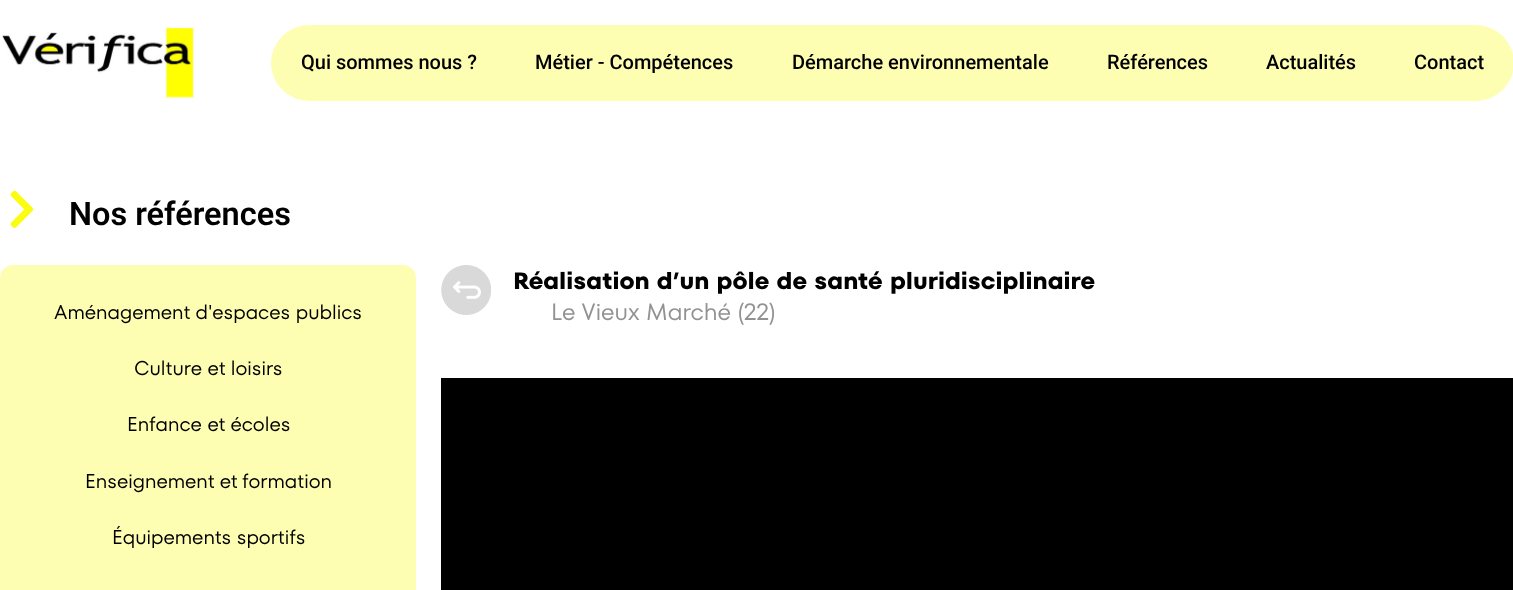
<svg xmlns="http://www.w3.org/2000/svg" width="1513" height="590">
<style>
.a{font:500 20px Roboto;fill:#000}
.b{font:600 32.5px Roboto;fill:#000}
.c{font:bold 23.75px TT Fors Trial;fill:#000}
.d{font:23.75px TT Fors Trial;fill:#929292}
.e{font:20px TT Fors Trial;fill:#000}
</style>
<rect width="100%" height="100%" fill="#fff"/>
<image href="1.png" x="2" y="25" width="194" height="75"/>
<rect fill="#fefeb3" x="271" y="25" width="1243" height="76" rx="38"/>
<image href="2.png" x="10" y="190" width="24" height="38"/>
<image href="3.png" x="441" y="265" width="50" height="50"/>
<path fill="#000" d="M441 378h1072v212H441z"/>
<rect fill="#fefeb3" y="265" width="416" height="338" rx="13"/>
<text class="a" x="301" y="69">Qui sommes nous ?</text>
<text class="a" x="535" y="69">Métier - Compétences</text>
<text class="a" x="792" y="69">Démarche environnementale</text>
<text class="a" x="1107" y="69">Références</text>
<text class="a" x="1266" y="69">Actualités</text>
<text class="a" x="1414" y="69">Contact</text>
<text class="b" x="69" y="225">Nos références</text>
<text class="c" x="513" y="289">Réalisation d’un pôle de santé pluridisciplinaire</text>
<text class="d" x="551" y="320">Le Vieux Marché (22)</text>
<text class="e" x="54" y="319">Aménagement d'espaces publics</text>
<text class="e" x="134" y="375">Culture et loisirs</text>
<text class="e" x="127" y="431">Enfance et écoles</text>
<text class="e" x="85" y="488">Enseignement et formation</text>
<text class="e" x="112" y="544">Équipements sportifs</text>
</svg>
